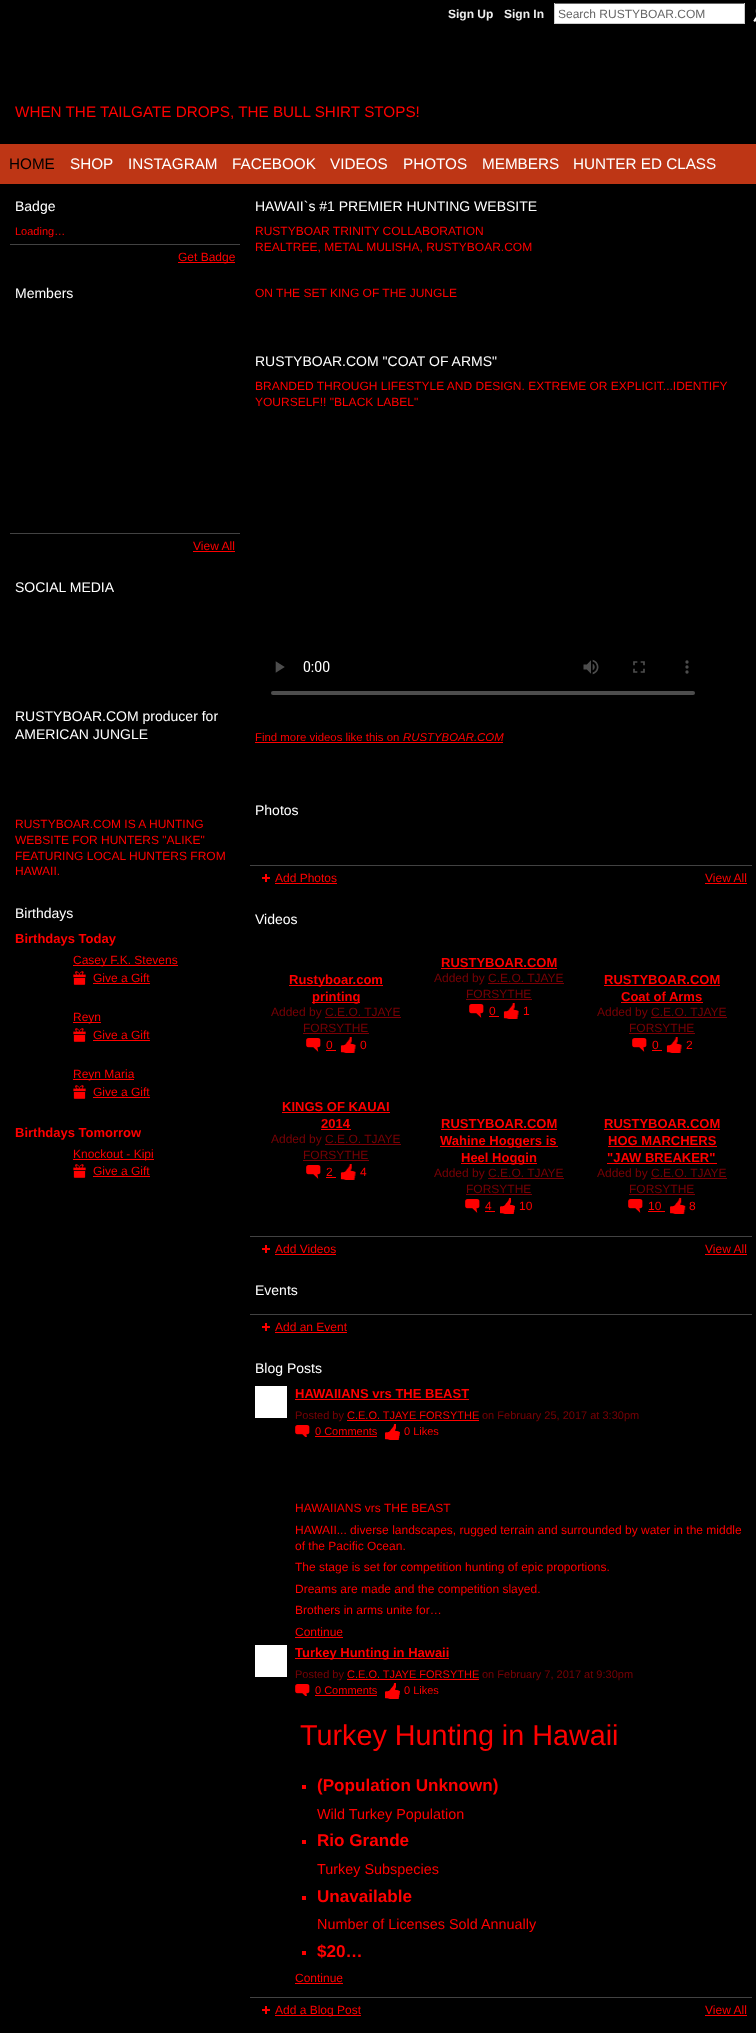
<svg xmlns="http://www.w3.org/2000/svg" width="756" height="2033">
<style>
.a{font:bold 12px Liberation Sans;fill:#eee}
.b{font:12px Liberation Sans;fill:#666}
.c{font:15.25px Liberation Sans;fill:#f00}
.d{font:15.25px Liberation Sans;fill:#000}
.e{font:15.25px Liberation Sans;fill:#fff}
.f{font:14px Liberation Sans;fill:#fff}
.g{font:11px Liberation Sans;fill:#f00}
.h{font:12px Liberation Sans;fill:#f00}
.i{font:bold 13px Liberation Sans;fill:#f00}
.j{font:11.4px Liberation Sans;fill:#f00}
.k{font:italic 11.4px Liberation Sans;fill:#f00}
.l{font:12px Liberation Sans;fill:#7b0005}
.m{font:11px Liberation Sans;fill:#7b0005}
.n{font:28.75px Liberation Sans;fill:#f00}
.o{font:bold 17.1px Liberation Sans;fill:#f00}
.p{font:14.4px Liberation Sans;fill:#f00}
</style>
<rect width="100%" height="100%" fill="#000"/>
<path fill="#fff" d="M555 4h189v19H555z"/>
<path fill="#666" d="M554 3h191v1H554z"/>
<path fill="#ccc" d="M744 3h1v21H744z"/>
<path fill="#ccc" d="M554 23h191v1H554z"/>
<path fill="#ccc" d="M554 3h1v21H554z"/>
<image href="1.png" x="753" y="9" width="3" height="13"/>
<path fill="#be3615" d="M0 144h756v40H0z"/>
<path fill="#424242" d="M10 244h230v1H10z"/>
<path fill="#f00" d="M178 262h57v1H178z"/>
<path fill="#424242" d="M10 533h230v1H10z"/>
<path fill="#f00" d="M193 551h42v1H193z"/>
<path fill="#f00" d="M73 965h105v1H73z"/>
<image href="2.png" x="73" y="971" width="13" height="14"/>
<path fill="#f00" d="M93 983h57v1H93z"/>
<path fill="#f00" d="M73 1022h28v1H73z"/>
<image href="2.png" x="73" y="1028" width="13" height="14"/>
<path fill="#f00" d="M93 1040h57v1H93z"/>
<path fill="#f00" d="M73 1079h61v1H73z"/>
<image href="2.png" x="73" y="1085" width="13" height="14"/>
<path fill="#f00" d="M93 1097h57v1H93z"/>
<path fill="#f00" d="M73 1159h81v1H73z"/>
<image href="2.png" x="73" y="1164" width="13" height="14"/>
<path fill="#f00" d="M93 1176h57v1H93z"/>
<image href="3.png" x="271" y="659" width="424" height="36"/>
<path fill="#f00" d="M255 742h248v1H255z"/>
<path fill="#424242" d="M250 865h502v1H250z"/>
<image href="4.png" x="262" y="874" width="8" height="8"/>
<path fill="#f00" d="M275 883h62v1H275z"/>
<path fill="#f00" d="M705 883h42v1H705z"/>
<path fill="#f00" d="M289 985h94v1H289z"/>
<path fill="#f00" d="M312 1002h48v1H312z"/>
<path fill="#7b0005" d="M325 1017h76v1H325z"/>
<path fill="#7b0005" d="M303 1033h66v1H303z"/>
<image href="5.png" x="306" y="1038" width="15" height="14"/>
<path fill="#f00" d="M326 1050h10v1H326z"/>
<image href="6.png" x="340" y="1037" width="16" height="16"/>
<path fill="#f00" d="M441 968h116v1H441z"/>
<path fill="#7b0005" d="M488 983h76v1H488z"/>
<path fill="#7b0005" d="M466 999h66v1H466z"/>
<image href="5.png" x="469" y="1004" width="15" height="14"/>
<path fill="#f00" d="M489 1016h10v1H489z"/>
<image href="6.png" x="503" y="1003" width="16" height="16"/>
<path fill="#f00" d="M604 985h116v1H604z"/>
<path fill="#f00" d="M621 1002h82v1H621z"/>
<path fill="#7b0005" d="M651 1017h76v1H651z"/>
<path fill="#7b0005" d="M629 1033h66v1H629z"/>
<image href="5.png" x="632" y="1038" width="15" height="14"/>
<path fill="#f00" d="M652 1050h10v1H652z"/>
<image href="6.png" x="666" y="1037" width="16" height="16"/>
<path fill="#f00" d="M282 1112h108v1H282z"/>
<path fill="#f00" d="M321 1129h30v1H321z"/>
<path fill="#7b0005" d="M325 1144h76v1H325z"/>
<path fill="#7b0005" d="M303 1160h66v1H303z"/>
<image href="5.png" x="306" y="1165" width="15" height="14"/>
<path fill="#f00" d="M326 1177h10v1H326z"/>
<image href="6.png" x="340" y="1164" width="16" height="16"/>
<path fill="#f00" d="M441 1129h116v1H441z"/>
<path fill="#f00" d="M440 1146h118v1H440z"/>
<path fill="#f00" d="M461 1163h76v1H461z"/>
<path fill="#7b0005" d="M488 1178h76v1H488z"/>
<path fill="#7b0005" d="M466 1194h66v1H466z"/>
<image href="5.png" x="465" y="1199" width="15" height="14"/>
<path fill="#f00" d="M485 1211h10v1H485z"/>
<image href="7.png" x="500" y="1198" width="15" height="16"/>
<path fill="#f00" d="M604 1129h116v1H604z"/>
<path fill="#f00" d="M608 1146h109v1H608z"/>
<path fill="#f00" d="M607 1163h110v1H607z"/>
<path fill="#7b0005" d="M651 1178h76v1H651z"/>
<path fill="#7b0005" d="M629 1194h66v1H629z"/>
<image href="5.png" x="628" y="1199" width="15" height="14"/>
<path fill="#f00" d="M648 1211h17v1H648z"/>
<image href="8.png" x="670" y="1198" width="16" height="16"/>
<path fill="#424242" d="M250 1236h502v1H250z"/>
<image href="4.png" x="262" y="1245" width="8" height="8"/>
<path fill="#f00" d="M275 1254h61v1H275z"/>
<path fill="#f00" d="M705 1254h42v1H705z"/>
<path fill="#424242" d="M250 1314h502v1H250z"/>
<image href="4.png" x="262" y="1323" width="8" height="8"/>
<path fill="#f00" d="M275 1332h72v1H275z"/>
<path fill="#fff" d="M255 1386h32v32H255z"/>
<path fill="#f00" d="M295 1399h174v1H295z"/>
<path fill="#f00" d="M347 1420h132v1H347z"/>
<image href="9.png" x="295" y="1425" width="15" height="12"/>
<path fill="#f00" d="M315 1436h62v1H315z"/>
<image href="7.png" x="385" y="1424" width="15" height="16"/>
<path fill="#f00" d="M295 1637h48v1H295z"/>
<path fill="#fff" d="M255 1645h32v32H255z"/>
<path fill="#f00" d="M295 1658h154v1H295z"/>
<path fill="#f00" d="M347 1679h132v1H347z"/>
<image href="9.png" x="295" y="1684" width="15" height="12"/>
<path fill="#f00" d="M315 1695h62v1H315z"/>
<image href="7.png" x="385" y="1683" width="15" height="16"/>
<path fill="#f00" d="M302 1785h4v4H302z"/>
<path fill="#f00" d="M302 1840h4v4H302z"/>
<path fill="#f00" d="M302 1896h4v4H302z"/>
<path fill="#f00" d="M302 1951h4v4H302z"/>
<path fill="#f00" d="M295 1983h48v1H295z"/>
<path fill="#424242" d="M250 1997h502v1H250z"/>
<image href="4.png" x="262" y="2006" width="8" height="8"/>
<path fill="#f00" d="M275 2015h86v1H275z"/>
<path fill="#f00" d="M705 2015h42v1H705z"/>
<text class="a" x="448" y="18">Sign Up</text>
<text class="a" x="504" y="18">Sign In</text>
<text class="b" x="558" y="18">Search RUSTYBOAR.COM</text>
<text class="c" x="15" y="117">WHEN THE TAILGATE DROPS, THE BULL SHIRT STOPS!</text>
<text class="d" x="9" y="169">HOME</text>
<text class="e" x="70" y="169">SHOP</text>
<text class="e" x="128" y="169">INSTAGRAM</text>
<text class="e" x="232" y="169">FACEBOOK</text>
<text class="e" x="330" y="169">VIDEOS</text>
<text class="e" x="403" y="169">PHOTOS</text>
<text class="e" x="482" y="169">MEMBERS</text>
<text class="e" x="573" y="169">HUNTER ED CLASS</text>
<text class="f" x="15" y="211">Badge</text>
<text class="g" x="15" y="235">Loading…</text>
<text class="h" x="178" y="261">Get Badge</text>
<text class="f" x="15" y="298">Members</text>
<text class="h" x="193" y="550">View All</text>
<text class="f" x="15" y="592">SOCIAL MEDIA</text>
<text class="f" x="15" y="721">RUSTYBOAR.COM producer for</text>
<text class="f" x="15" y="739">AMERICAN JUNGLE</text>
<text class="h" x="15" y="828">RUSTYBOAR.COM IS A HUNTING</text>
<text class="h" x="15" y="844">WEBSITE FOR HUNTERS "ALIKE"</text>
<text class="h" x="15" y="860">FEATURING LOCAL HUNTERS FROM</text>
<text class="h" x="15" y="875">HAWAII.</text>
<text class="f" x="15" y="918">Birthdays</text>
<text class="i" x="15" y="943">Birthdays Today</text>
<text class="h" x="73" y="964">Casey F.K. Stevens</text>
<text class="h" x="93" y="982">Give a Gift</text>
<text class="h" x="73" y="1021">Reyn</text>
<text class="h" x="93" y="1039">Give a Gift</text>
<text class="h" x="73" y="1078">Reyn Maria</text>
<text class="h" x="93" y="1096">Give a Gift</text>
<text class="i" x="15" y="1137">Birthdays Tomorrow</text>
<text class="h" x="73" y="1158">Knockout - Kipi</text>
<text class="h" x="93" y="1175">Give a Gift</text>
<text class="f" x="255" y="211">HAWAII`s #1 PREMIER HUNTING WEBSITE</text>
<text class="h" x="255" y="235">RUSTYBOAR TRINITY COLLABORATION</text>
<text class="h" x="255" y="251">REALTREE, METAL MULISHA, RUSTYBOAR.COM</text>
<text class="h" x="255" y="297">ON THE SET KING OF THE JUNGLE</text>
<text class="f" x="255" y="366">RUSTYBOAR.COM "COAT OF ARMS"</text>
<text class="h" x="255" y="390">BRANDED THROUGH LIFESTYLE AND DESIGN. EXTREME OR EXPLICIT...IDENTIFY</text>
<text class="h" x="255" y="406">YOURSELF!! "BLACK LABEL"</text>
<text class="j" x="255" y="741">Find more videos like this on</text>
<text class="k" x="403" y="741">RUSTYBOAR.COM</text>
<text class="f" x="255" y="815">Photos</text>
<text class="h" x="275" y="882">Add Photos</text>
<text class="h" x="705" y="882">View All</text>
<text class="f" x="255" y="924">Videos</text>
<text class="i" x="289" y="984">Rustyboar.com</text>
<text class="i" x="312" y="1001">printing</text>
<text class="l" x="271" y="1016">Added by C.E.O. TJAYE</text>
<text class="l" x="303" y="1032">FORSYTHE</text>
<text class="h" x="326" y="1049">0</text>
<text class="h" x="360" y="1049">0</text>
<text class="i" x="441" y="967">RUSTYBOAR.COM</text>
<text class="l" x="434" y="982">Added by C.E.O. TJAYE</text>
<text class="l" x="466" y="998">FORSYTHE</text>
<text class="h" x="489" y="1015">0</text>
<text class="h" x="523" y="1015">1</text>
<text class="i" x="604" y="984">RUSTYBOAR.COM</text>
<text class="i" x="621" y="1001">Coat of Arms</text>
<text class="l" x="597" y="1016">Added by C.E.O. TJAYE</text>
<text class="l" x="629" y="1032">FORSYTHE</text>
<text class="h" x="652" y="1049">0</text>
<text class="h" x="686" y="1049">2</text>
<text class="i" x="282" y="1111">KINGS OF KAUAI</text>
<text class="i" x="321" y="1128">2014</text>
<text class="l" x="271" y="1143">Added by C.E.O. TJAYE</text>
<text class="l" x="303" y="1159">FORSYTHE</text>
<text class="h" x="326" y="1176">2</text>
<text class="h" x="360" y="1176">4</text>
<text class="i" x="441" y="1128">RUSTYBOAR.COM</text>
<text class="i" x="440" y="1145">Wahine Hoggers is</text>
<text class="i" x="461" y="1162">Heel Hoggin</text>
<text class="l" x="434" y="1177">Added by C.E.O. TJAYE</text>
<text class="l" x="466" y="1193">FORSYTHE</text>
<text class="h" x="485" y="1210">4</text>
<text class="h" x="519" y="1210">10</text>
<text class="i" x="604" y="1128">RUSTYBOAR.COM</text>
<text class="i" x="608" y="1145">HOG MARCHERS</text>
<text class="i" x="607" y="1162">"JAW BREAKER"</text>
<text class="l" x="597" y="1177">Added by C.E.O. TJAYE</text>
<text class="l" x="629" y="1193">FORSYTHE</text>
<text class="h" x="648" y="1210">10</text>
<text class="h" x="689" y="1210">8</text>
<text class="h" x="275" y="1253">Add Videos</text>
<text class="h" x="705" y="1253">View All</text>
<text class="f" x="255" y="1295">Events</text>
<text class="h" x="275" y="1331">Add an Event</text>
<text class="f" x="255" y="1373">Blog Posts</text>
<text class="i" x="295" y="1398">HAWAIIANS vrs THE BEAST</text>
<text class="m" x="295" y="1419">Posted by</text>
<text class="g" x="347" y="1419">C.E.O. TJAYE FORSYTHE</text>
<text class="m" x="482" y="1419">on February 25, 2017 at 3:30pm</text>
<text class="g" x="315" y="1435">0 Comments</text>
<text class="g" x="404" y="1435">0 Likes</text>
<text class="h" x="295" y="1512">HAWAIIANS vrs THE BEAST</text>
<text class="h" x="295" y="1534">HAWAII... diverse landscapes, rugged terrain and surrounded by water in the middle</text>
<text class="h" x="295" y="1550">of the Pacific Ocean.</text>
<text class="h" x="295" y="1571">The stage is set for competition hunting of epic proportions.</text>
<text class="h" x="295" y="1593">Dreams are made and the competition slayed.</text>
<text class="h" x="295" y="1614">Brothers in arms unite for…</text>
<text class="h" x="295" y="1636">Continue</text>
<text class="i" x="295" y="1657">Turkey Hunting in Hawaii</text>
<text class="m" x="295" y="1678">Posted by</text>
<text class="g" x="347" y="1678">C.E.O. TJAYE FORSYTHE</text>
<text class="m" x="482" y="1678">on February 7, 2017 at 9:30pm</text>
<text class="g" x="315" y="1694">0 Comments</text>
<text class="g" x="404" y="1694">0 Likes</text>
<text class="n" x="300" y="1745">Turkey Hunting in Hawaii</text>
<text class="o" x="317" y="1791">(Population Unknown)</text>
<text class="p" x="317" y="1819">Wild Turkey Population</text>
<text class="o" x="317" y="1846">Rio Grande</text>
<text class="p" x="317" y="1874">Turkey Subspecies</text>
<text class="o" x="317" y="1902">Unavailable</text>
<text class="p" x="317" y="1929">Number of Licenses Sold Annually</text>
<text class="o" x="317" y="1957">$20…</text>
<text class="h" x="295" y="1982">Continue</text>
<text class="h" x="275" y="2014">Add a Blog Post</text>
<text class="h" x="705" y="2014">View All</text>
</svg>
